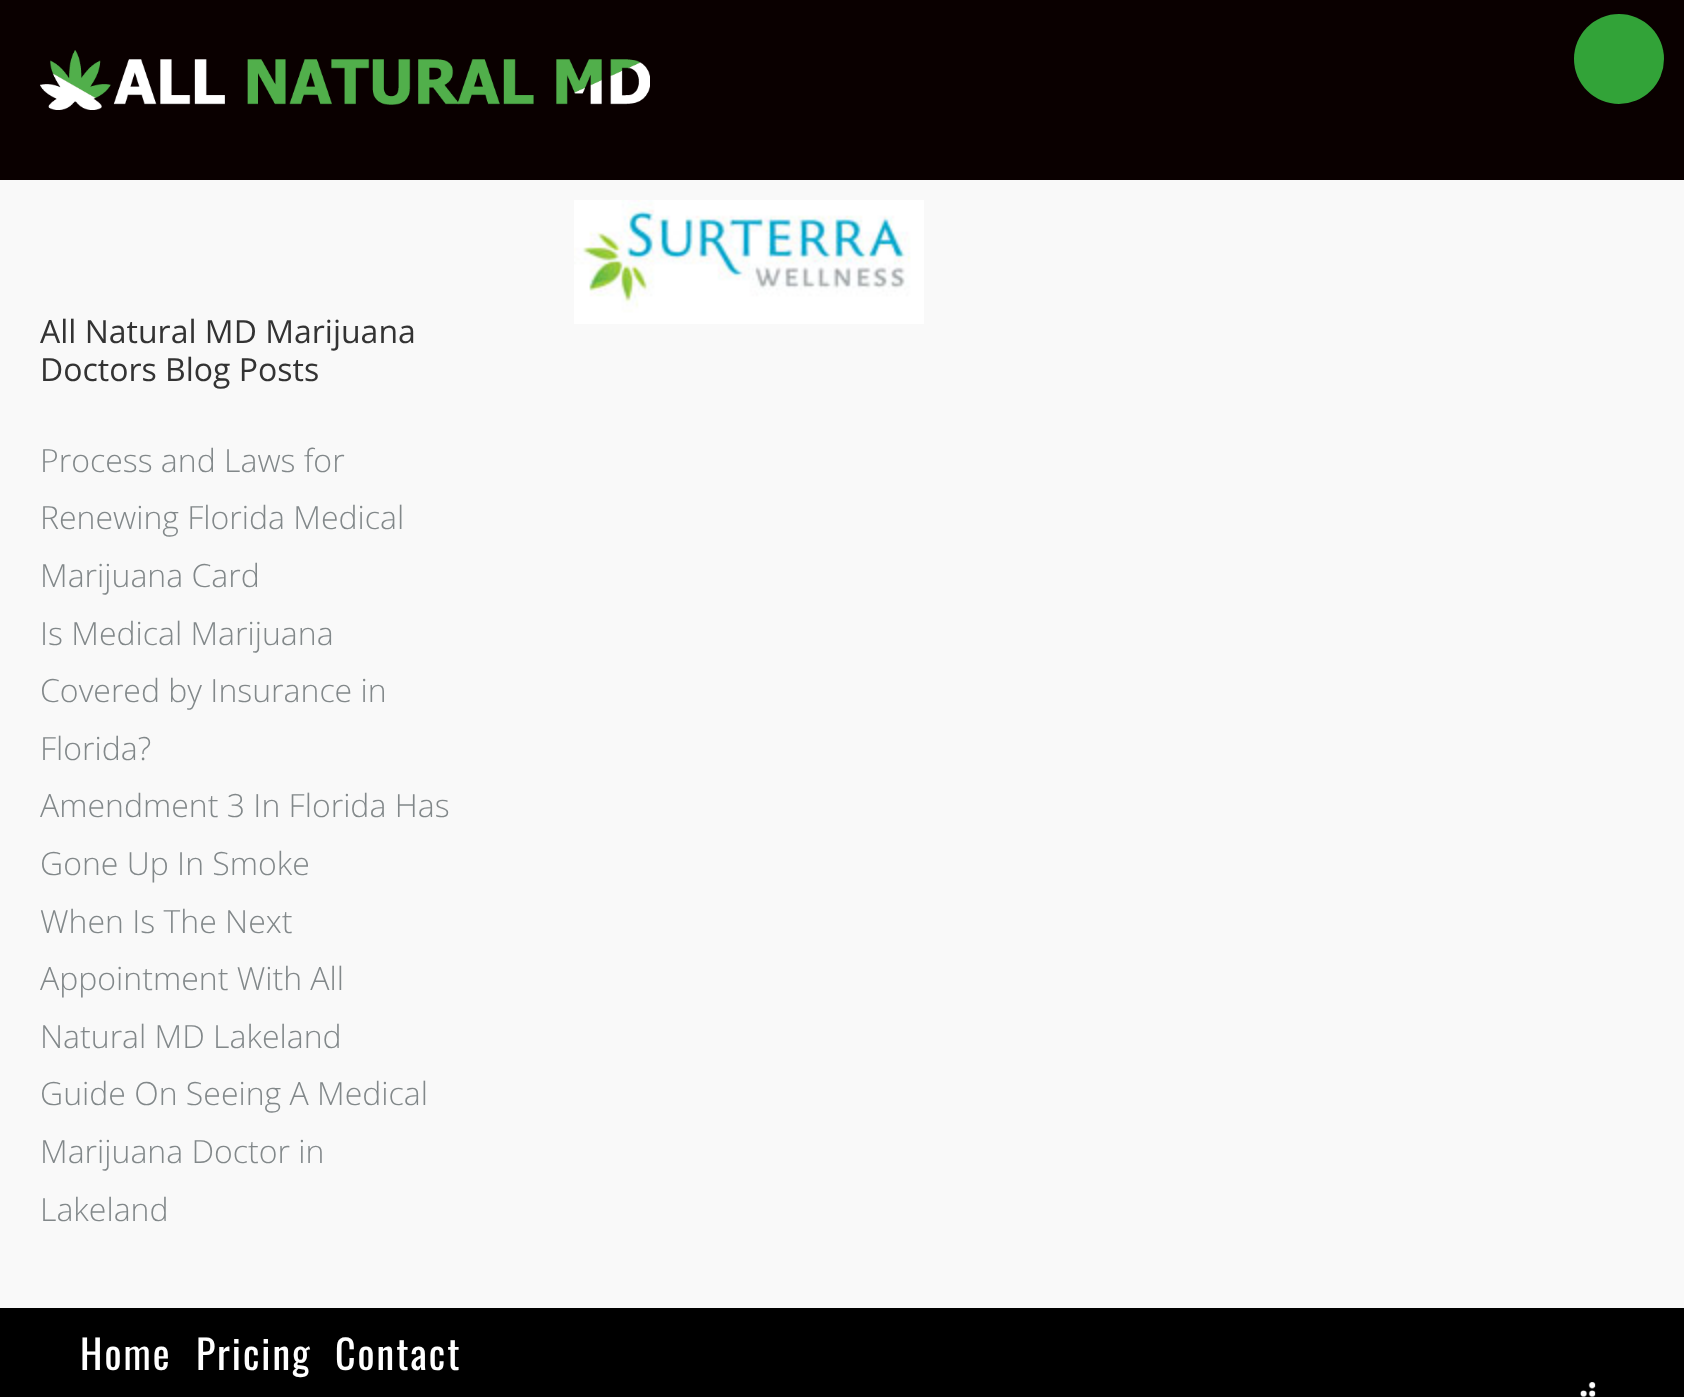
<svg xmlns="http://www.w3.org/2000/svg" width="1684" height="1397">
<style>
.a{font:32px Open Sans;fill:#333}
.b{font:300 32px Open Sans;fill:#82888a}
.c{font:40px Oswald;letter-spacing:2px;fill:#fff}
</style>
<rect width="100%" height="100%" fill="#f9f9f9"/>
<path fill="#0a0000" d="M0 0h1684v180H0z"/>
<image href="1.png" x="40" y="50" width="610" height="60"/>
<circle fill="#32a338" cx="1619" cy="59" r="45"/>
<image href="2.png" x="574" y="200" width="350" height="124"/>
<path fill="#000" d="M0 1308h1684v89H0z"/>
<image href="3.png" x="1580" y="1382" width="16" height="15"/>
<text class="a" x="40" y="343">All Natural MD Marijuana</text>
<text class="a" x="40" y="381">Doctors Blog Posts</text>
<text class="b" x="40" y="472">Process and Laws for</text>
<text class="b" x="40" y="529">Renewing Florida Medical</text>
<text class="b" x="40" y="587">Marijuana Card</text>
<text class="b" x="40" y="645">Is Medical Marijuana</text>
<text class="b" x="40" y="702">Covered by Insurance in</text>
<text class="b" x="40" y="760">Florida?</text>
<text class="b" x="40" y="817">Amendment 3 In Florida Has</text>
<text class="b" x="40" y="875">Gone Up In Smoke</text>
<text class="b" x="40" y="933">When Is The Next</text>
<text class="b" x="40" y="990">Appointment With All</text>
<text class="b" x="40" y="1048">Natural MD Lakeland</text>
<text class="b" x="40" y="1105">Guide On Seeing A Medical</text>
<text class="b" x="40" y="1163">Marijuana Doctor in</text>
<text class="b" x="40" y="1221">Lakeland</text>
<text class="c" x="80" y="1370">Home</text>
<text class="c" x="196" y="1370">Pricing</text>
<text class="c" x="335" y="1370">Contact</text>
</svg>
